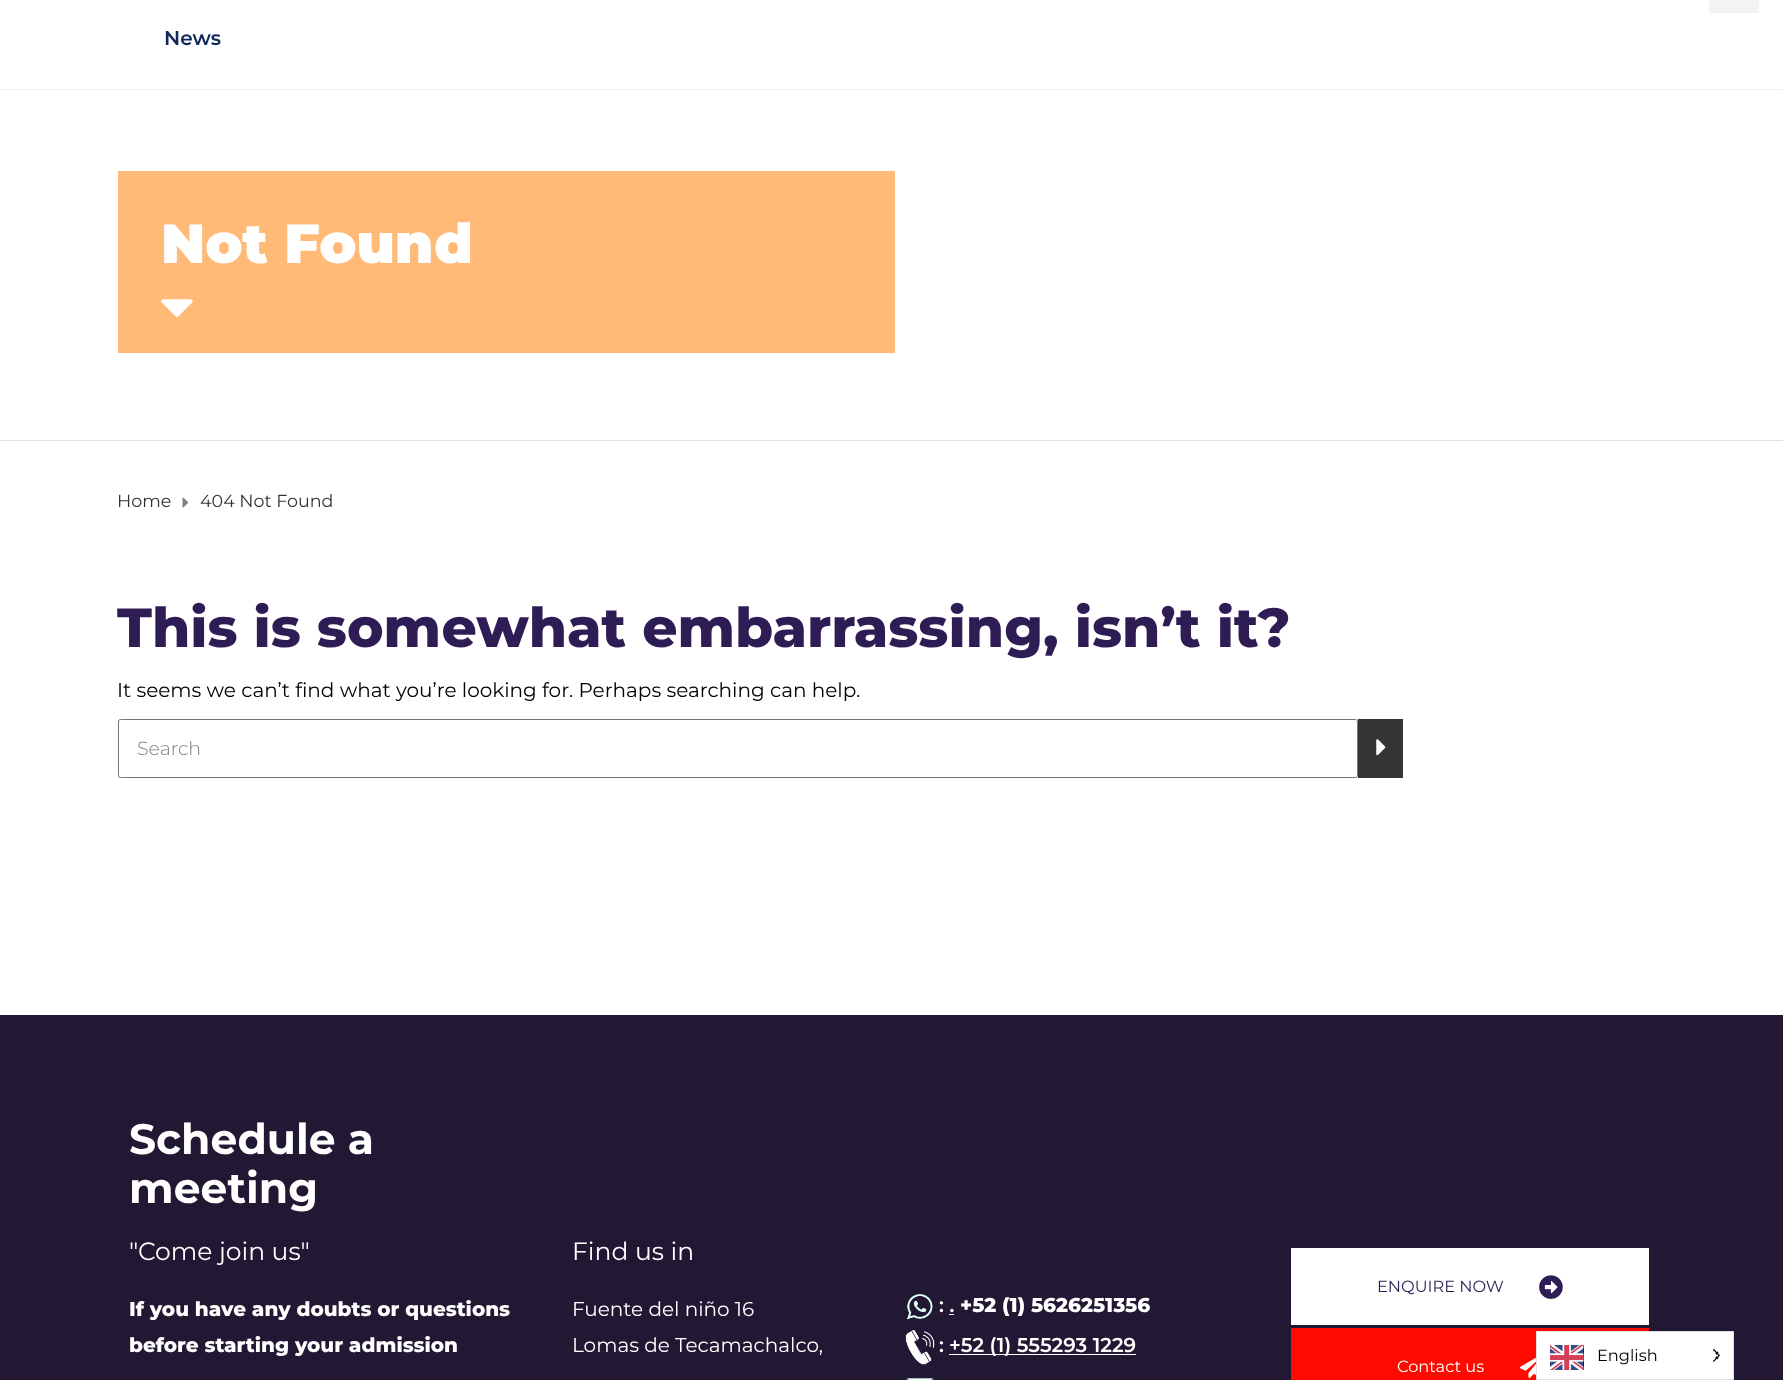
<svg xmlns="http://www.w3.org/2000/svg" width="1783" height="1380">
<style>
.a{font:600 20px Montserrat;fill:#0f2a5b}
.b{font:900 55px Montserrat;fill:#fff}
.c{font:17.5px Montserrat;fill:#333}
.d{font:800 55px Montserrat;fill:#2d1d54}
.e{font:20px Montserrat;fill:#000}
.f{font:300 19px Montserrat;fill:#7b8085}
.g{font:bold 42.5px Montserrat;fill:#fff}
.h{font:25px Montserrat;fill:#fff}
.i{font:800 20px Montserrat;fill:#fff}
.j{font:20px Montserrat;fill:#fff}
.k{font:600 20px Montserrat;fill:#fff}
.l{font:16.25px Montserrat;fill:#2d1d54}
.m{font:16.25px Montserrat;fill:#fff}
.n{font:16.25px Montserrat;fill:#000}
</style>
<rect width="100%" height="100%" fill="#fff"/>
<path fill="#eee" d="M0 89h1783v1H0z"/>
<path fill="#f3f3f5" d="M1709 0h50v13H1709z"/>
<path fill="#e1e1e1" d="M0 440h1783v1H0z"/>
<path fill="#ffba78" d="M118 171h777v182H118z"/>
<image href="1.png" x="161" y="299" width="32" height="18"/>
<image href="2.png" x="182" y="497" width="7" height="11"/>
<rect fill="none" stroke="#767676" x="118.5" y="719.5" width="1239" height="58" rx="2"/>
<path fill="#353535" d="M1358 719h45v59H1358z"/>
<image href="3.png" x="1376" y="739" width="10" height="17"/>
<path fill="#231834" d="M0 1015h1783v365H0z"/>
<image href="4.png" x="907" y="1294" width="26" height="26"/>
<path fill="#fff" d="M949 1314h5v1H949z"/>
<image href="5.png" x="905" y="1330" width="30" height="35"/>
<path fill="#fff" d="M949 1354h187v1H949z"/>
<image href="6.png" x="905" y="1378" width="30" height="2"/>
<path fill="#fff" d="M1291 1248h358v77H1291z"/>
<image href="7.png" x="1539" y="1275" width="24" height="24"/>
<path fill="#ff0a00" d="M1291 1328h358v52H1291z"/>
<image href="8.png" x="1520" y="1357" width="16" height="21"/>
<path fill="#fff" stroke="#e0e0e0" d="M1536.5 1331.5h197v48H1536.5z"/>
<image href="9.png" x="1550" y="1345" width="34" height="25"/>
<image href="10.png" x="1713" y="1348" width="7" height="14"/>
<text class="a" x="164" y="45">News</text>
<text class="b" x="161" y="263">Not Found</text>
<text class="c" x="117" y="507">Home</text>
<text class="c" x="200" y="507">404 Not Found</text>
<text class="d" x="117" y="647">This is somewhat embarrassing, isn’t it?</text>
<text class="e" x="117" y="697">It seems we can’t find what you’re looking for. Perhaps searching can help.</text>
<text class="f" x="137" y="755">Search</text>
<text class="g" x="129" y="1154">Schedule a</text>
<text class="g" x="129" y="1203">meeting</text>
<text class="h" x="129" y="1260">"Come join us"</text>
<text class="i" x="129" y="1316">If you have any doubts or questions</text>
<text class="i" x="129" y="1352">before starting your admission</text>
<text class="h" x="572" y="1260">Find us in</text>
<text class="j" x="572" y="1316">Fuente del niño 16</text>
<text class="j" x="572" y="1352">Lomas de Tecamachalco,</text>
<text class="k" x="939" y="1312">: .</text>
<text class="i" x="960" y="1312">+52 (1) 5626251356</text>
<text class="k" x="939" y="1352">:</text>
<text class="k" x="949" y="1352">+52 (1) 555293 1229</text>
<text class="l" x="1377" y="1292">ENQUIRE NOW</text>
<text class="m" x="1397" y="1372">Contact us</text>
<text class="n" x="1597" y="1361">English</text>
</svg>
